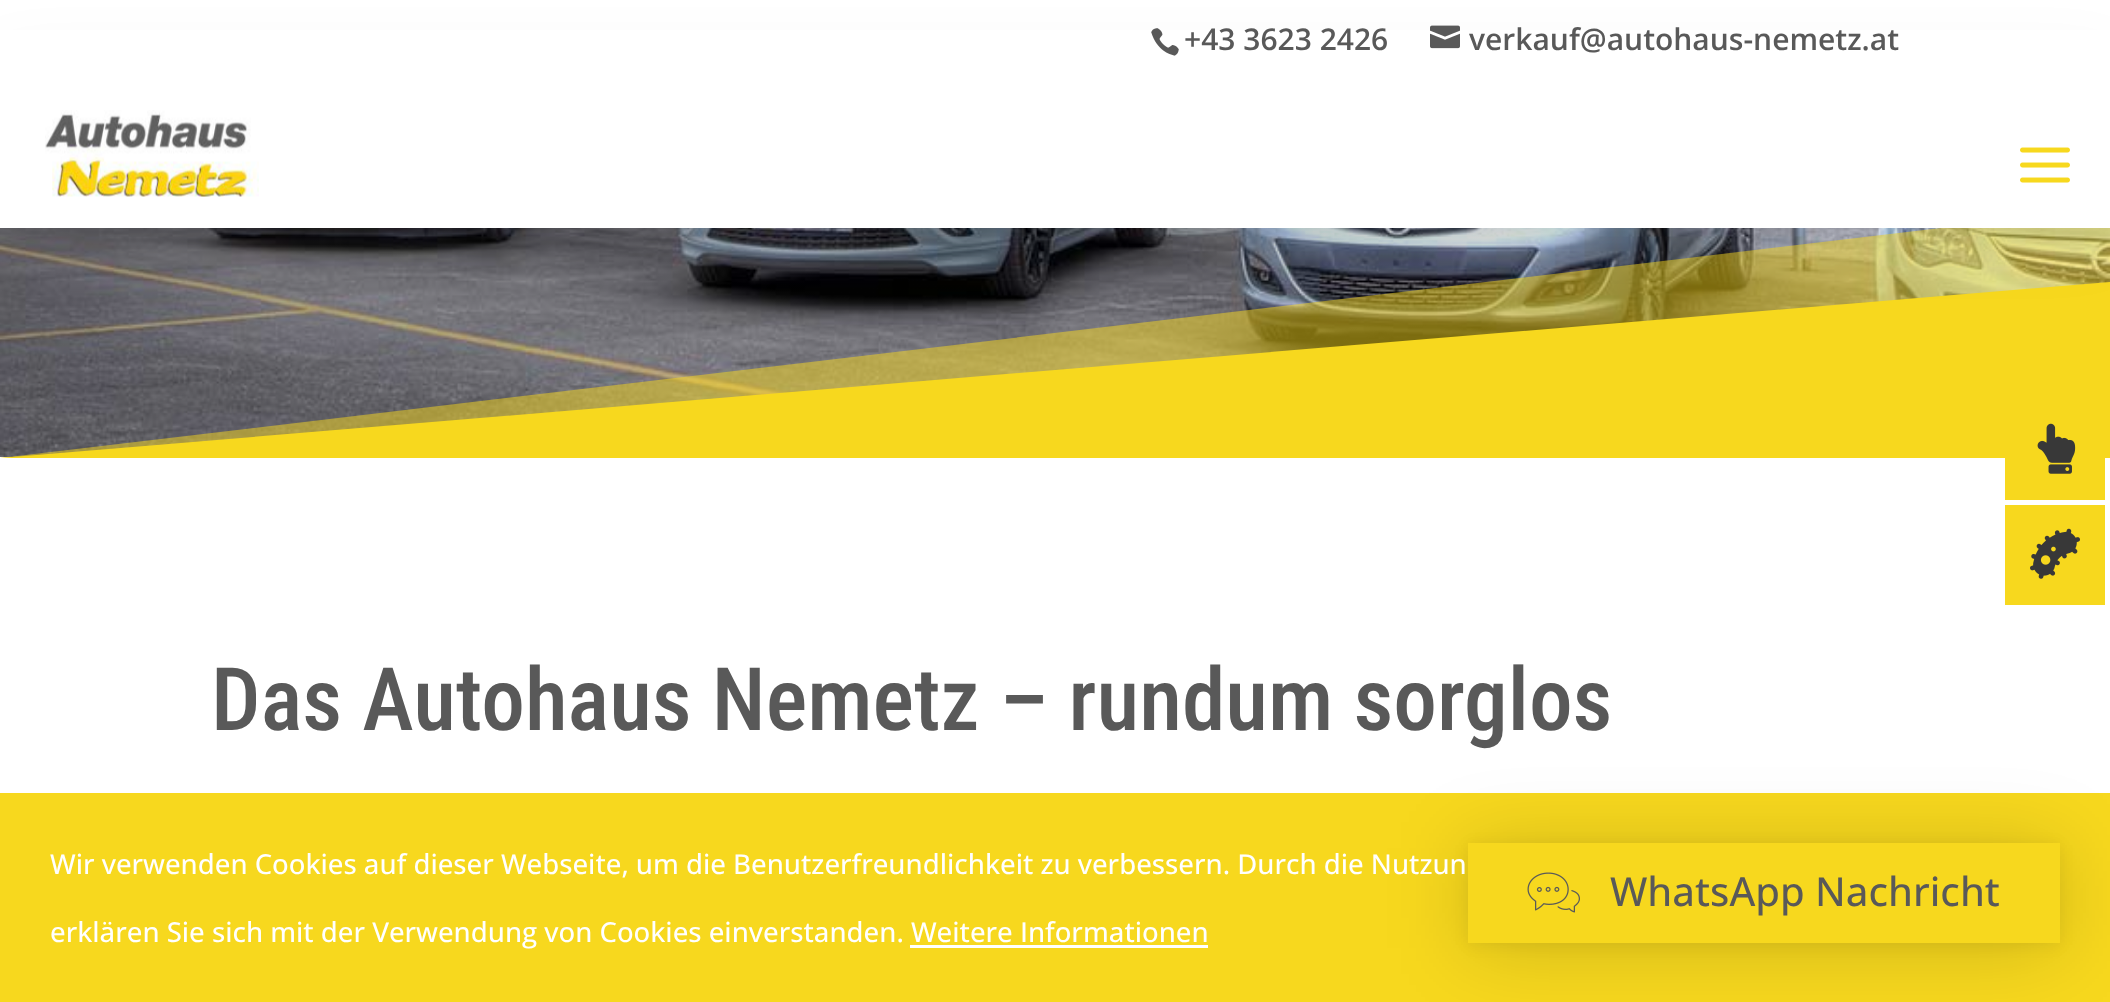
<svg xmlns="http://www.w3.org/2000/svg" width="2110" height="1002">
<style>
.a{font:600 30px Open Sans;fill:#595959}
.b{font:500 87.5px Roboto Condensed;fill:#595959}
.c{font:500 27.5px Open Sans;fill:#fff}
.d{font:500 40px Open Sans;fill:#595959}
</style>
<rect width="100%" height="100%" fill="#fff"/>
<image href="5.png" x="0" y="228" width="2110" height="229"/>
<path fill="#f7d81e80" d="M2110 208v250h-2110z"/>
<path fill="#f7d81e" d="M2110 282v176h-2110z"/>
<path fill="#0000001a" filter="blur(37.5px)" d="M0 78h2110v150H0z"/>
<path fill="#fff" d="M0 30h2110v198H0z"/>
<image href="1.png" x="45" y="110" width="214" height="87"/>
<image href="2.png" x="2020" y="147" width="50" height="36"/>
<image href="3.png" x="1151" y="28" width="28" height="28"/>
<image href="4.png" x="1430" y="25" width="30" height="24"/>
<path fill="#f7d81e" d="M2005 458h100v42H2005z"/>
<image href="6.png" x="2037" y="423" width="39" height="51"/>
<path fill="#f7d81e" d="M2005 505h100v100H2005z"/>
<image href="7.png" x="2030" y="528" width="50" height="51"/>
<path fill="#f7d81e" d="M0 793h2110v209H0z"/>
<path fill="#fff" d="M910 945h298v3H910z"/>
<path fill="#00000029" filter="blur(40px)" d="M1468 848h592v100H1468z"/>
<path fill="#0000000f" filter="blur(7.5px)" d="M1468 845h592v100H1468z"/>
<path fill="#f7d81e" d="M1468 843h592v100H1468z"/>
<image href="8.png" x="1527" y="872" width="53" height="41"/>
<text class="a" x="1184" y="50">+43 3623 2426</text>
<text class="a" x="1469" y="50">verkauf@autohaus-nemetz.at</text>
<text class="b" x="211" y="730">Das Autohaus Nemetz – rundum sorglos</text>
<text class="c" x="50" y="874">Wir verwenden Cookies auf dieser Webseite, um die Benutzerfreundlichkeit zu verbessern. Durch die Nutzun</text>
<text class="c" x="50" y="942">erklären Sie sich mit der Verwendung von Cookies einverstanden. Weitere Informationen</text>
<text class="d" x="1610" y="906">WhatsApp Nachricht</text>
</svg>
